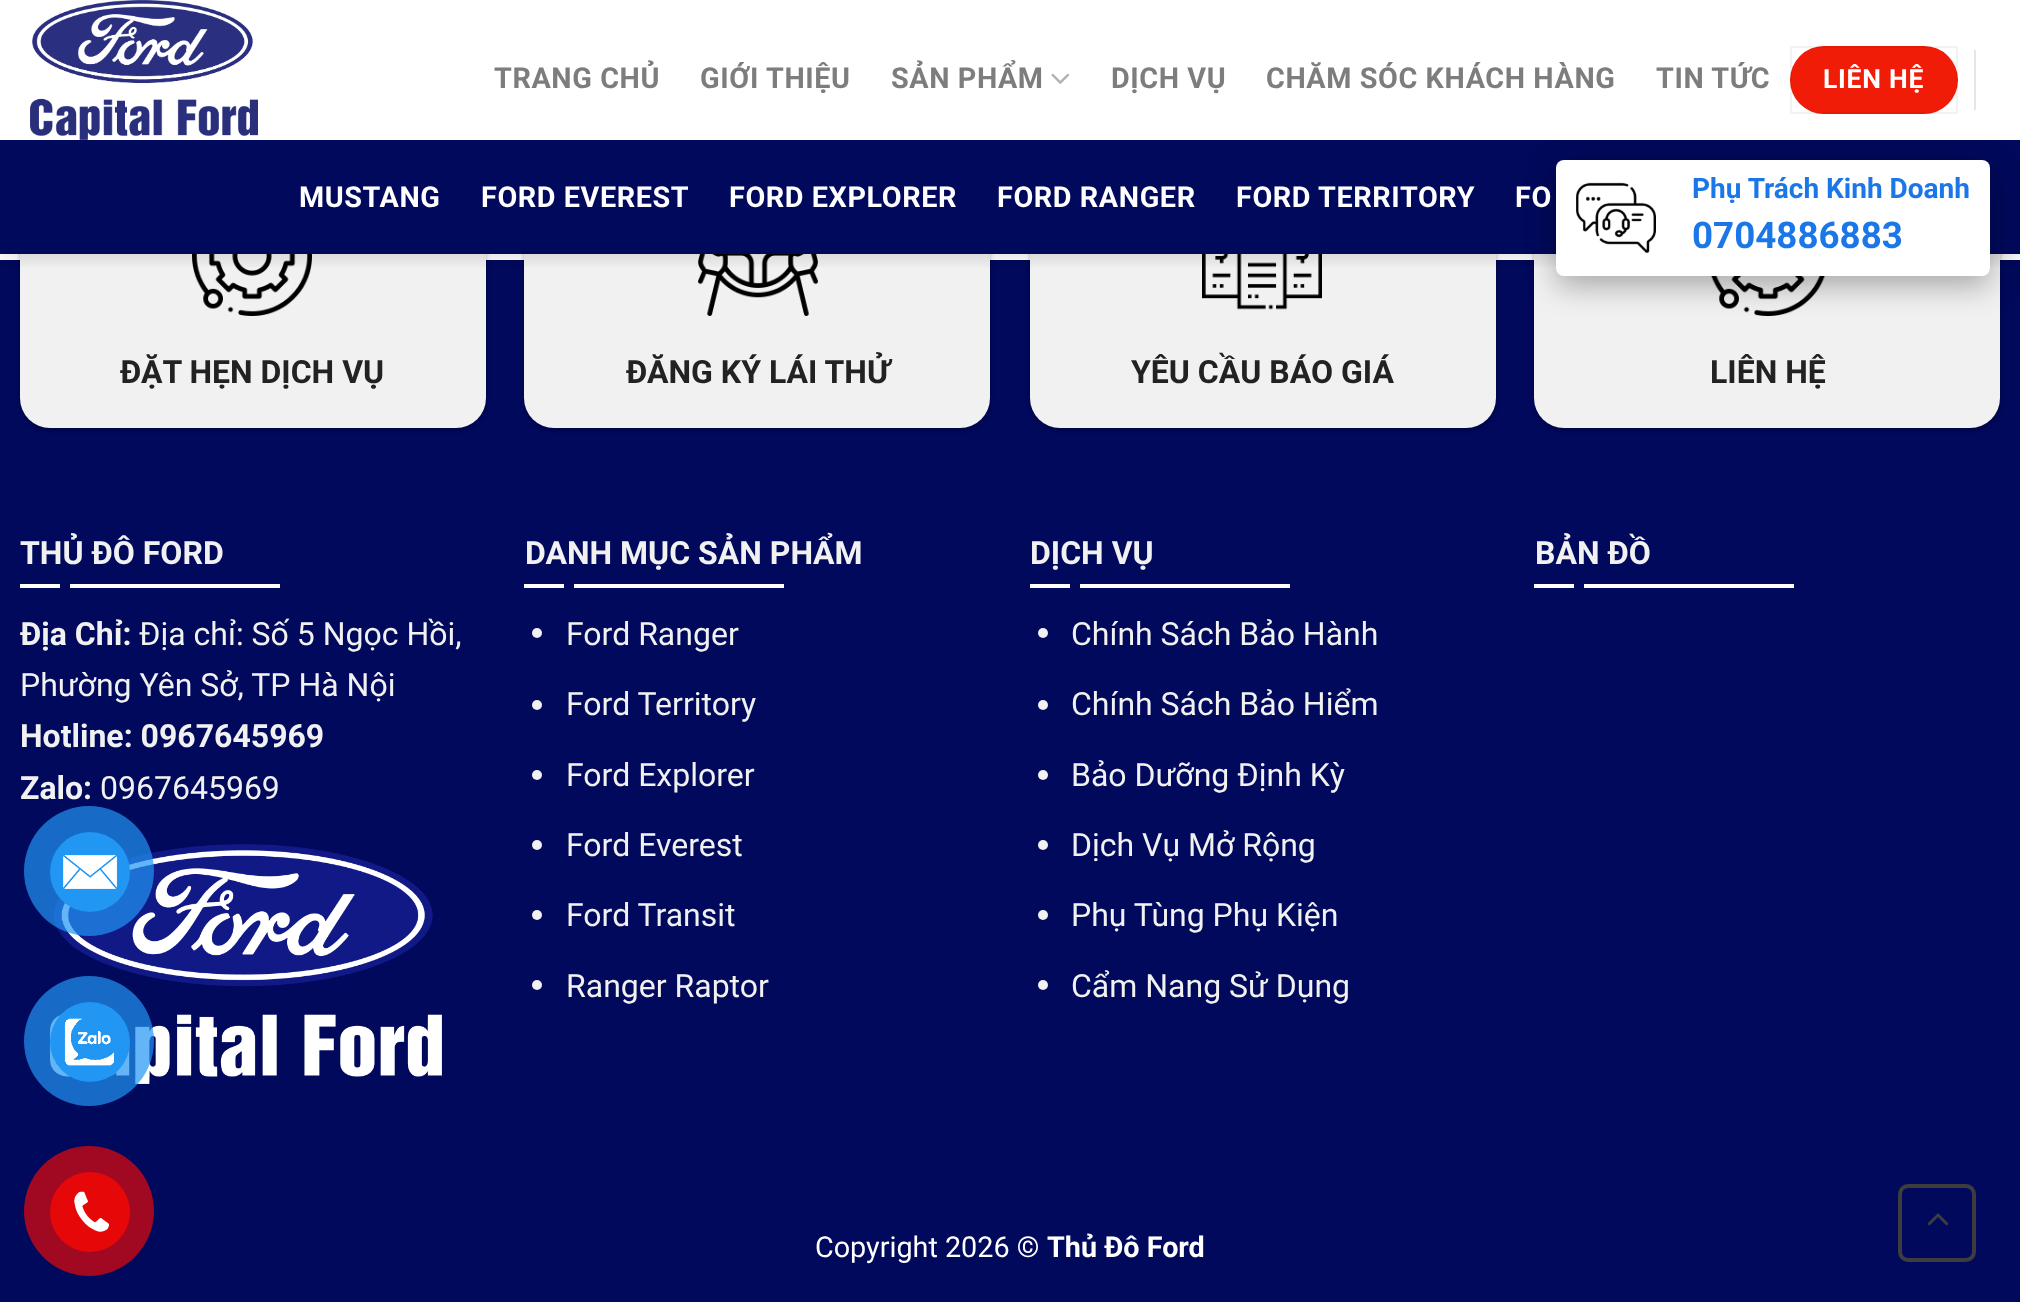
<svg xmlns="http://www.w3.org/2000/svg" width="2020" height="1302">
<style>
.a{font:bold 28.75px Roboto;letter-spacing:0.6px;fill:#7d7d7d}
.b{font:bold 26.5px Roboto;letter-spacing:0.75px;fill:#fff}
.c{font:bold 28px Roboto;fill:#1b77e8}
.d{font:bold 36.75px Roboto;fill:#1b77e8}
.e{font:bold 28.75px Roboto;letter-spacing:0.6px;fill:#fff}
.f{font:bold 32px Roboto;fill:#222}
.g{font:bold 32px Roboto;fill:#f1f1f1}
.h{font:32px Roboto;fill:#f1f1f1}
.i{font:28.75px Roboto;fill:#fff}
.j{font:bold 28.75px Roboto;fill:#fff}
</style>
<defs>
<clipPath id="clip1"><path d="M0 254h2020v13H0z"/></clipPath>
</defs>
<rect width="100%" height="100%" fill="#fff"/>
<path fill="#00095b" d="M0 260h2020v1042H0z"/>
<rect fill="#0000003d" filter="blur(2px)" x="20" y="162" width="466" height="268" rx="30"/>
<rect fill="#0000001f" filter="blur(3px)" x="24" y="166" width="458" height="260" rx="26"/>
<rect fill="#f1f1f1" x="20" y="160" width="466" height="268" rx="30"/>
<image href="4.png" x="192" y="254" width="120" height="62"/>
<rect fill="#0000003d" filter="blur(2px)" x="524" y="162" width="466" height="268" rx="30"/>
<rect fill="#0000001f" filter="blur(3px)" x="528" y="166" width="458" height="260" rx="26"/>
<rect fill="#f1f1f1" x="524" y="160" width="466" height="268" rx="30"/>
<image href="5.png" x="698" y="254" width="120" height="62"/>
<rect fill="#0000003d" filter="blur(2px)" x="1030" y="162" width="466" height="268" rx="30"/>
<rect fill="#0000001f" filter="blur(3px)" x="1034" y="166" width="458" height="260" rx="26"/>
<rect fill="#f1f1f1" x="1030" y="160" width="466" height="268" rx="30"/>
<image href="6.png" x="1202" y="254" width="120" height="56"/>
<rect fill="#0000003d" filter="blur(2px)" x="1534" y="162" width="466" height="268" rx="30"/>
<rect fill="#0000001f" filter="blur(3px)" x="1538" y="166" width="458" height="260" rx="26"/>
<rect fill="#f1f1f1" x="1534" y="160" width="466" height="268" rx="30"/>
<image href="7.png" x="1711" y="276" width="115" height="40"/>
<g clip-path="url(#clip1)">
<path fill="#00000026" filter="blur(10px)" d="M2 2h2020v254H2z"/>
</g>
<image href="1.png" x="30" y="0" width="228" height="140"/>
<image href="2.png" x="1051" y="73" width="19" height="11"/>
<rect fill="#f01c07" x="1790" y="46" width="168" height="68" rx="34"/>
<path fill="none" stroke="#0000000d" stroke-width="2" d="M1791 47h166v66H1791z"/>
<path fill="#e6e6e6" d="M1974 50h2v60H1974z"/>
<path fill="#00095b" d="M0 140h2020v114H0z"/>
<rect fill="#0000004d" filter="blur(15px)" x="1556" y="170" width="434" height="116" rx="8"/>
<rect fill="#fff" x="1556" y="160" width="434" height="116" rx="8"/>
<image href="3.png" x="1576" y="182" width="80" height="71"/>
<path fill="#fff" d="M20 584h40v4H20z"/>
<path fill="#fff" d="M70 584h210v4H70z"/>
<image href="8.png" x="50" y="844" width="392" height="240"/>
<path fill="#fff" d="M524 584h40v4H524z"/>
<path fill="#fff" d="M574 584h210v4H574z"/>
<circle fill="#f1f1f1" cx="537" cy="633" r="5"/>
<circle fill="#f1f1f1" cx="537" cy="705" r="5"/>
<circle fill="#f1f1f1" cx="537" cy="775" r="5"/>
<circle fill="#f1f1f1" cx="537" cy="845" r="5"/>
<circle fill="#f1f1f1" cx="537" cy="915" r="5"/>
<circle fill="#f1f1f1" cx="537" cy="985" r="5"/>
<path fill="#fff" d="M1030 584h40v4H1030z"/>
<path fill="#fff" d="M1080 584h210v4H1080z"/>
<circle fill="#f1f1f1" cx="1043" cy="633" r="5"/>
<circle fill="#f1f1f1" cx="1043" cy="705" r="5"/>
<circle fill="#f1f1f1" cx="1043" cy="775" r="5"/>
<circle fill="#f1f1f1" cx="1043" cy="845" r="5"/>
<circle fill="#f1f1f1" cx="1043" cy="915" r="5"/>
<circle fill="#f1f1f1" cx="1043" cy="985" r="5"/>
<path fill="#fff" d="M1534 584h40v4H1534z"/>
<path fill="#fff" d="M1584 584h210v4H1584z"/>
<rect fill="none" stroke="#3d3d3d" stroke-width="4" x="1900" y="1186" width="74" height="74" rx="8"/>
<image href="9.png" x="1927" y="1213" width="22" height="13"/>
<circle fill="#2196f3b3" cx="89" cy="871" r="65"/>
<circle fill="#2196f3" cx="90" cy="872" r="40"/>
<image href="10.png" x="63" y="855" width="55" height="34"/>
<circle fill="#2196f3b3" cx="89" cy="1041" r="65"/>
<circle fill="#2196f3" cx="90" cy="1042" r="40"/>
<image href="11.png" x="64" y="1018" width="50" height="48"/>
<circle fill="#a10821" cx="89" cy="1211" r="65"/>
<circle fill="#e60808" cx="90" cy="1212" r="40"/>
<image href="12.png" x="74" y="1191" width="35" height="41"/>
<text class="a" x="494" y="88">TRANG CHỦ</text>
<text class="a" x="700" y="88">GIỚI THIỆU</text>
<text class="a" x="891" y="88">SẢN PHẨM</text>
<text class="a" x="1111" y="88">DỊCH VỤ</text>
<text class="a" x="1266" y="88">CHĂM SÓC KHÁCH HÀNG</text>
<text class="a" x="1656" y="88">TIN TỨC</text>
<text class="b" x="1823" y="88">LIÊN HỆ</text>
<text class="c" x="1692" y="198">Phụ Trách Kinh Doanh</text>
<text class="d" x="1692" y="248">0704886883</text>
<text class="e" x="299" y="207">MUSTANG</text>
<text class="e" x="481" y="207">FORD EVEREST</text>
<text class="e" x="729" y="207">FORD EXPLORER</text>
<text class="e" x="997" y="207">FORD RANGER</text>
<text class="e" x="1236" y="207">FORD TERRITORY</text>
<text class="e" x="1515" y="207">FO</text>
<text class="f" x="120" y="383">ĐẶT HẸN DỊCH VỤ</text>
<text class="f" x="626" y="383">ĐĂNG KÝ LÁI THỬ</text>
<text class="f" x="1131" y="383">YÊU CẦU BÁO GIÁ</text>
<text class="f" x="1710" y="383">LIÊN HỆ</text>
<text class="g" x="20" y="564">THỦ ĐÔ FORD</text>
<text class="g" x="20" y="645">Địa Chỉ:</text>
<text class="h" x="139" y="645">Địa chỉ: Số 5 Ngọc Hồi,</text>
<text class="h" x="20" y="696">Phường Yên Sở, TP Hà Nội</text>
<text class="g" x="20" y="747">Hotline: 0967645969</text>
<text class="g" x="20" y="799">Zalo:</text>
<text class="h" x="100" y="799">0967645969</text>
<text class="g" x="525" y="564">DANH MỤC SẢN PHẨM</text>
<text class="h" x="566" y="645">Ford Ranger</text>
<text class="h" x="566" y="715">Ford Territory</text>
<text class="h" x="566" y="786">Ford Explorer</text>
<text class="h" x="566" y="856">Ford Everest</text>
<text class="h" x="566" y="926">Ford Transit</text>
<text class="h" x="566" y="997">Ranger Raptor</text>
<text class="g" x="1030" y="564">DỊCH VỤ</text>
<text class="h" x="1071" y="645">Chính Sách Bảo Hành</text>
<text class="h" x="1071" y="715">Chính Sách Bảo Hiểm</text>
<text class="h" x="1071" y="786">Bảo Dưỡng Định Kỳ</text>
<text class="h" x="1071" y="856">Dịch Vụ Mở Rộng</text>
<text class="h" x="1071" y="926">Phụ Tùng Phụ Kiện</text>
<text class="h" x="1071" y="997">Cẩm Nang Sử Dụng</text>
<text class="g" x="1535" y="564">BẢN ĐỒ</text>
<text class="i" x="815" y="1257">Copyright 2026 ©</text>
<text class="j" x="1047" y="1257">Thủ Đô Ford</text>
</svg>
